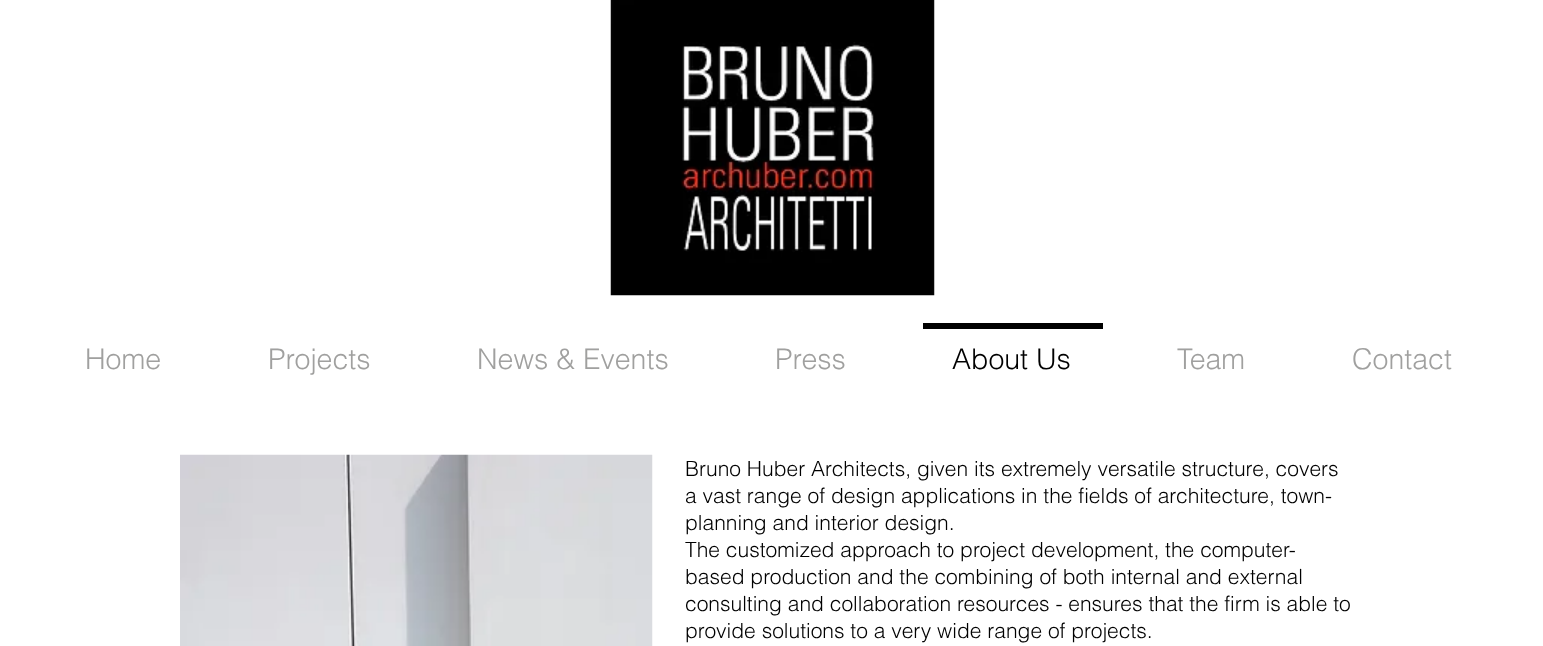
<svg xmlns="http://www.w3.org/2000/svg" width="1543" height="646">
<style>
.a{font:300 28.5px helvetica;fill:#a0a09f}
.b{font:300 28.5px helvetica;fill:#000}
.c{font:300 21px helvetica;fill:#000}
</style>
<rect width="100%" height="100%" fill="#fff"/>
<image href="1.png" x="610" y="0" width="325" height="296"/>
<path fill="#000" d="M923 323h180v6H923z"/>
<image href="2.png" x="180" y="454" width="473" height="192"/>
<text class="a" x="85" y="369">Home</text>
<text class="a" x="268" y="369">Projects</text>
<text class="a" x="477" y="369">News &amp; Events</text>
<text class="a" x="775" y="369">Press</text>
<text class="b" x="952" y="369">About Us</text>
<text class="a" x="1177" y="369">Team</text>
<text class="a" x="1352" y="369">Contact</text>
<text class="c" x="685" y="476">Bruno Huber Architects, given its extremely versatile structure, covers</text>
<text class="c" x="685" y="503">a vast range of design applications in the fields of architecture, town-</text>
<text class="c" x="685" y="530">planning and interior design.</text>
<text class="c" x="685" y="557">The customized approach to project development, the computer-</text>
<text class="c" x="685" y="584">based production and the combining of both internal and external</text>
<text class="c" x="685" y="611">consulting and collaboration resources - ensures that the firm is able to</text>
<text class="c" x="685" y="638">provide solutions to a very wide range of projects.</text>
</svg>
